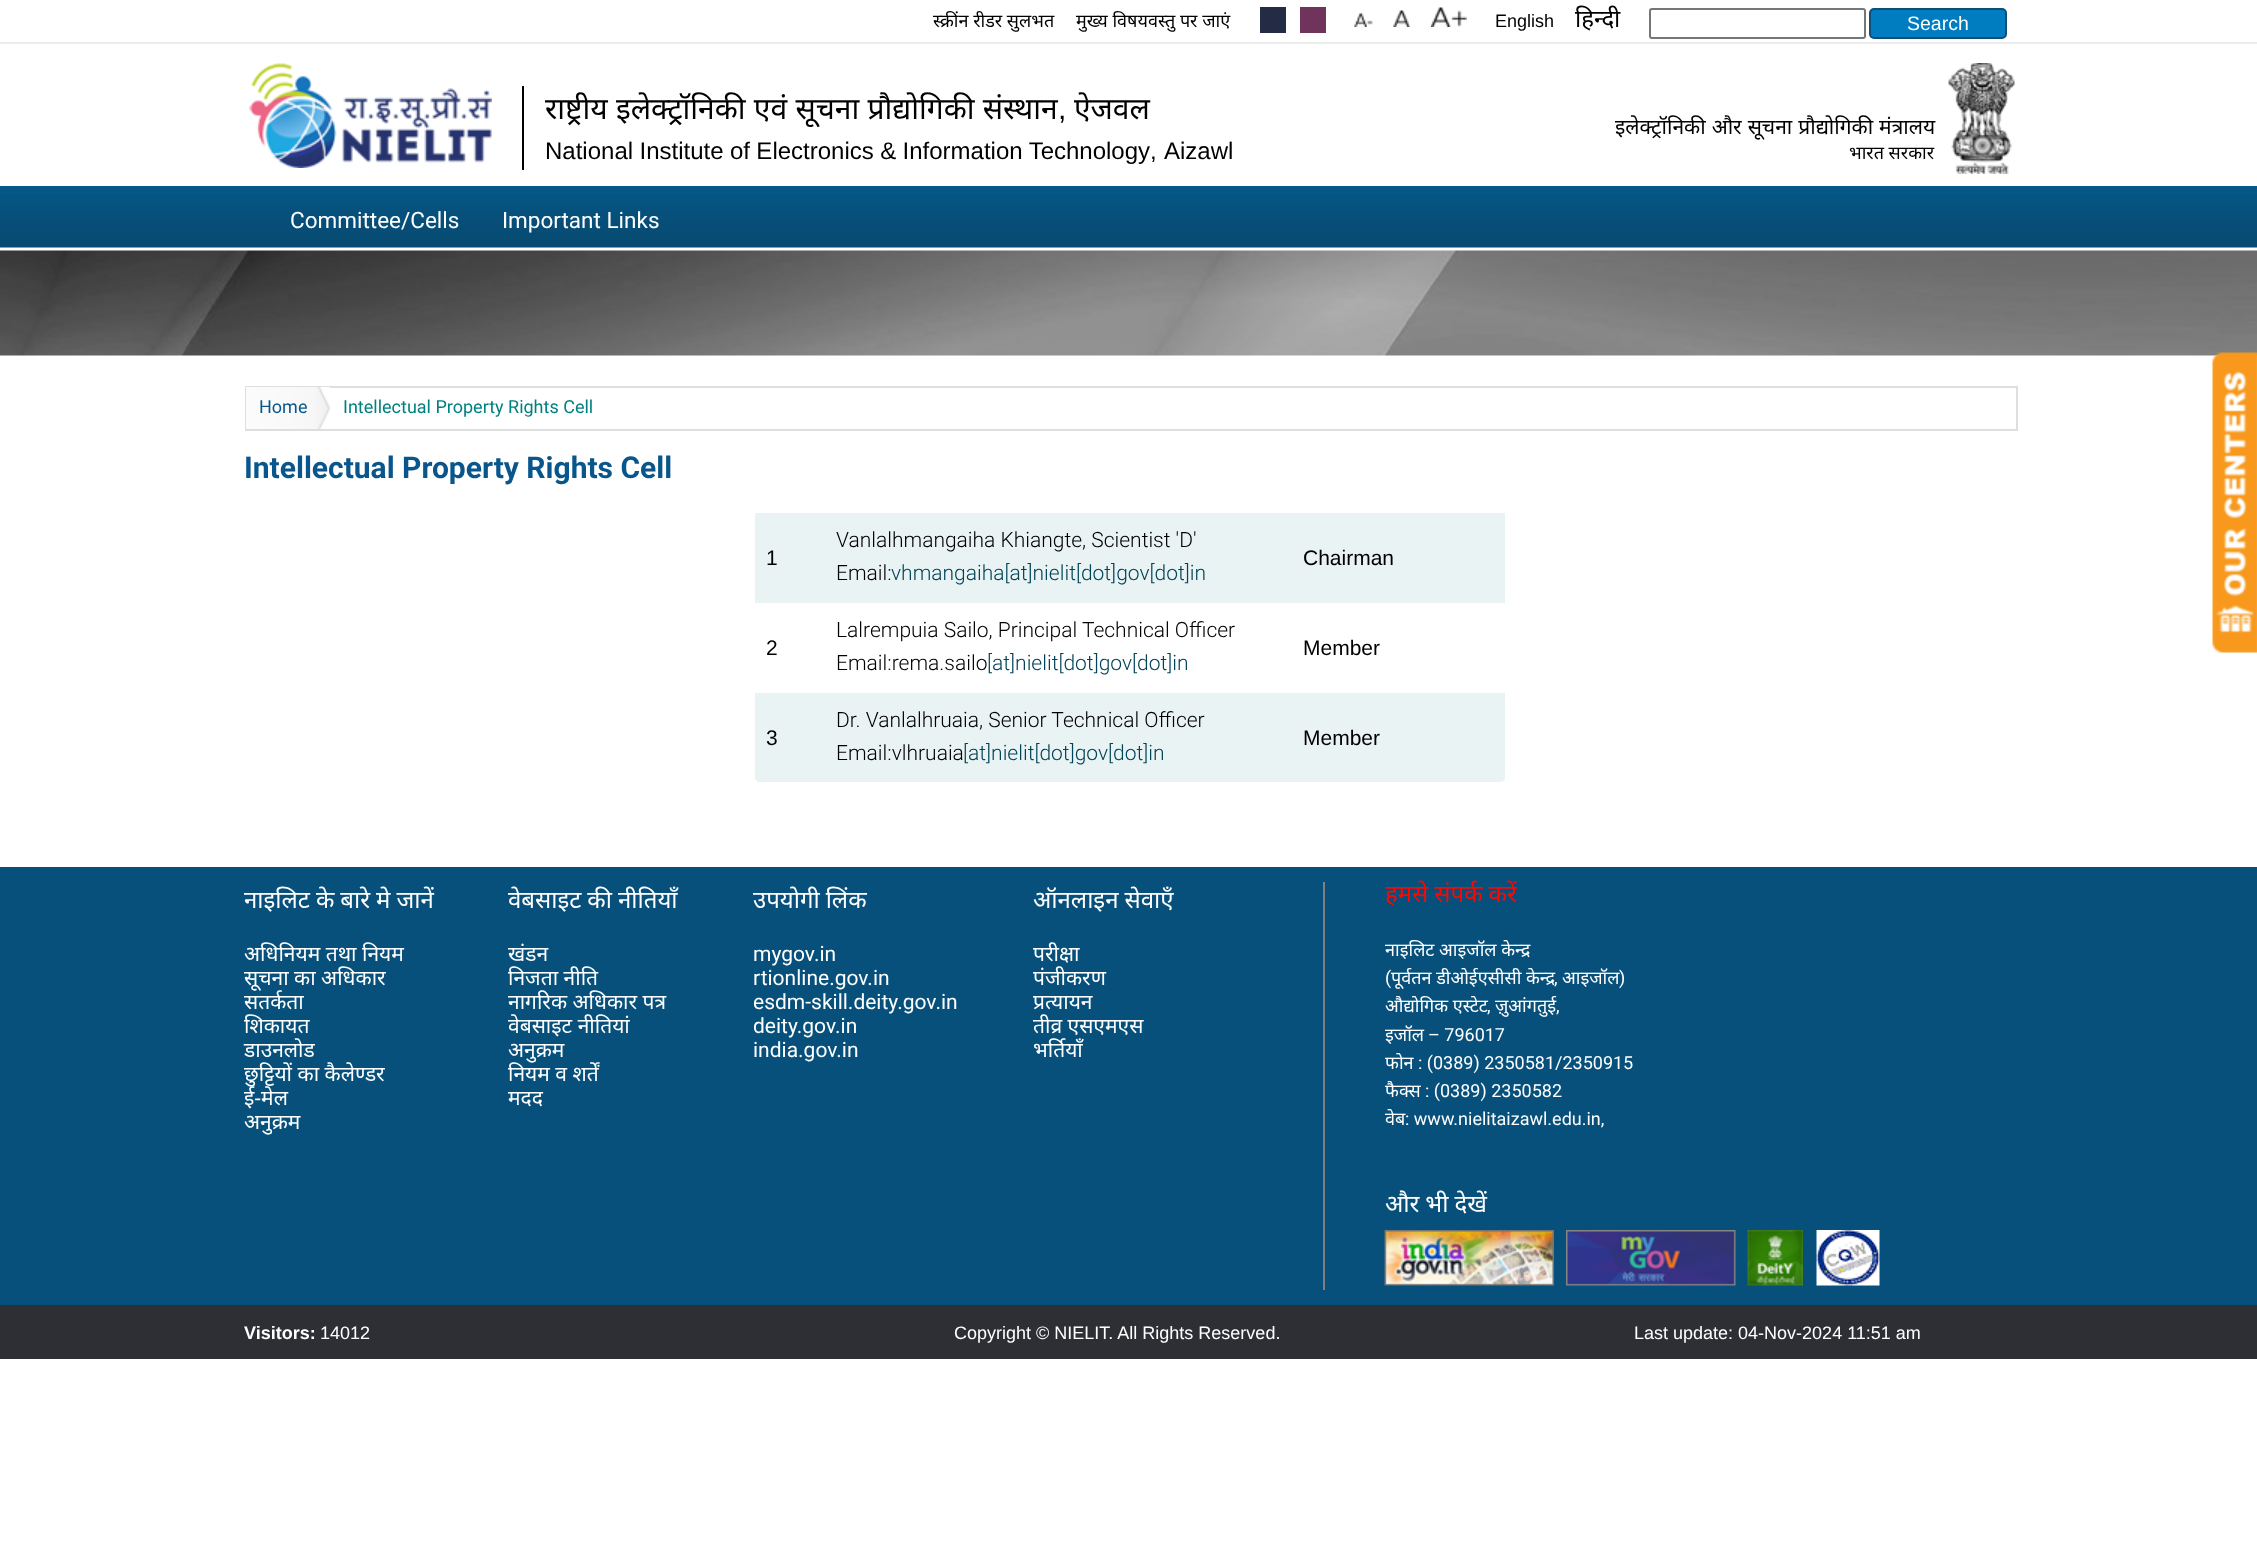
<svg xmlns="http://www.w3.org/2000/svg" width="2257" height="1552">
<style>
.a{font:18px Noto Sans;fill:#000}
.b{font:18px Liberation Sans;fill:#000}
.c{font:24px Noto Sans;fill:#000}
.d{font:19.5px Liberation Sans;fill:#fff}
.e{font:30px Noto Sans;fill:#000}
.f{font:30px Liberation Sans;fill:#000}
.g{font:24px Liberation Sans;fill:#000}
.h{font:21px Noto Sans;fill:#000}
.i{font:22.5px Roboto;fill:#fff}
.j{font:18px Roboto;fill:#09568c}
.k{font:18px Roboto;fill:#008080}
.l{font:bold 30px Roboto;fill:#09568c}
.m{font:21px Liberation Sans;fill:#000}
.n{font:300 21px Roboto;fill:#000}
.o{font:300 21px Roboto;fill:#024457}
.p{font:24px Noto Sans;fill:#fff}
.q{font:21px Noto Sans;fill:#fff}
.r{font:21px Roboto;fill:#fff}
.s{font:24px Noto Sans;fill:#ff0600}
.t{font:18px Noto Sans;fill:#fff}
.u{font:18px Roboto;fill:#fff}
.v{font:bold 18px Liberation Sans;fill:#fff}
.w{font:18px Liberation Sans;fill:#fff}
</style>
<rect width="100%" height="100%" fill="#fff"/>
<path fill="#ededee" d="M0 42h2257v2H0z"/>
<path fill="#232c44" d="M1260 7h26v26H1260z"/>
<path fill="#70335c" d="M1300 7h26v26H1300z"/>
<image href="1.png" x="1354" y="13" width="19" height="14"/>
<image href="2.png" x="1393" y="10" width="17" height="17"/>
<image href="3.png" x="1431" y="7" width="36" height="20"/>
<rect fill="none" stroke="#767676" stroke-width="2" x="1650" y="9" width="215" height="29" rx="2"/>
<rect fill="#007dc1" stroke="#124d77" stroke-width="2" x="1870" y="9" width="136" height="29" rx="4"/>
<image href="4.png" x="248" y="63" width="244" height="105"/>
<path fill="#000" d="M522 86h2v84H522z"/>
<image href="5.png" x="1948" y="63" width="67" height="111"/>
<image href="6.png" x="0" y="186" width="2257" height="62"/>
<image href="7.png" x="0" y="250" width="2257" height="106"/>
<path fill="none" stroke="#dedede" stroke-width="2" d="M246 387h1771v43H246z"/>
<image href="8.png" x="246" y="387" width="84" height="42"/>
<path fill="#eaf3f3" d="M755 513h750v90H755z"/>
<path fill="#eaf3f3" d="M755 693h69v89h-64c-3 0-5-2-5-5z"/>
<path fill="#eaf3f3" d="M824 693h468v89H824z"/>
<path fill="#eaf3f3" d="M1292 693h213v84c0 3-2 5-5 5h-208z"/>
<image href="9.png" x="2212" y="352" width="45" height="301"/>
<path fill="#07507b" d="M0 867h2257v438H0z"/>
<path fill="#7f8080" d="M1323 882h2v408H1323z"/>
<image href="10.png" x="1384" y="1230" width="170" height="56"/>
<image href="11.png" x="1566" y="1230" width="170" height="56"/>
<image href="12.png" x="1747" y="1230" width="56" height="56"/>
<image href="13.png" x="1816" y="1230" width="64" height="56"/>
<path fill="#2d2f34" d="M0 1305h2257v54H0z"/>
<text class="a" x="933" y="27">स्क्रींन रीडर सुलभत</text>
<text class="a" x="1076" y="27">मुख्य विषयवस्तु पर जाएं</text>
<text class="b" x="1495" y="27">English</text>
<text class="c" x="1575" y="27">हिन्दी</text>
<text class="d" x="1907" y="30">Search</text>
<text class="e" x="545" y="119" word-spacing="0.5">राष्ट्रीय इलेक्ट्रॉनिकी एवं सूचना प्रौद्योगिकी संस्थान</text>
<text class="f" x="1058" y="119">,</text>
<text class="e" x="1074" y="119">ऐजवल</text>
<text class="g" x="545" y="159" word-spacing="-0.25">National Institute of Electronics &amp; Information Technology</text>
<text class="g" x="1150" y="159">,</text>
<text class="g" x="1164" y="159">Aizawl</text>
<text class="h" x="1615" y="134" word-spacing="0.5">इलेक्ट्रॉनिकी और सूचना प्रौद्योगिकी मंत्रालय</text>
<text class="a" x="1849" y="159">भारत सरकार</text>
<text class="i" x="290" y="228">Committee/Cells</text>
<text class="i" x="502" y="228">Important Links</text>
<text class="j" x="259" y="413">Home</text>
<text class="k" x="343" y="413">Intellectual Property Rights Cell</text>
<text class="l" x="244" y="478">Intellectual Property Rights Cell</text>
<text class="m" x="766" y="565">1</text>
<text class="n" x="836" y="547">Vanlalhmangaiha Khiangte, Scientist 'D'</text>
<text class="n" x="836" y="580">Email:</text>
<text class="o" x="891" y="580">vhmangaiha[at]nielit[dot]gov[dot]in</text>
<text class="m" x="1303" y="565">Chairman</text>
<text class="m" x="766" y="655">2</text>
<text class="n" x="836" y="637">Lalrempuia Sailo, Principal Technical Officer</text>
<text class="n" x="836" y="670">Email:rema.sailo</text>
<text class="o" x="987" y="670">[at]nielit[dot]gov[dot]in</text>
<text class="m" x="1303" y="655">Member</text>
<text class="m" x="766" y="745">3</text>
<text class="n" x="836" y="727">Dr. Vanlalhruaia, Senior Technical Officer</text>
<text class="n" x="836" y="760">Email:vlhruaia</text>
<text class="o" x="963" y="760">[at]nielit[dot]gov[dot]in</text>
<text class="m" x="1303" y="745">Member</text>
<text class="p" x="244" y="908" word-spacing="-0.25">नाइलिट के बारे मे जानें</text>
<text class="q" x="244" y="961">अधिनियम तथा नियम</text>
<text class="q" x="244" y="985">सूचना का अधिकार</text>
<text class="q" x="244" y="1009">सतर्कता</text>
<text class="q" x="244" y="1033">शिकायत</text>
<text class="q" x="244" y="1057">डाउनलोड</text>
<text class="q" x="244" y="1081">छुट्टियों का कैलेण्डर</text>
<text class="q" x="244" y="1105">ई-मेल</text>
<text class="q" x="244" y="1129">अनुक्रम</text>
<text class="p" x="508" y="908" word-spacing="-0.25">वेबसाइट की नीतियाँ</text>
<text class="q" x="508" y="961">खंडन</text>
<text class="q" x="508" y="985">निजता नीति</text>
<text class="q" x="508" y="1009">नागरिक अधिकार पत्र</text>
<text class="q" x="508" y="1033">वेबसाइट नीतियां</text>
<text class="q" x="508" y="1057">अनुक्रम</text>
<text class="q" x="508" y="1081">नियम व शर्तें</text>
<text class="q" x="508" y="1105">मदद</text>
<text class="p" x="753" y="908" word-spacing="-0.25">उपयोगी लिंक</text>
<text class="r" x="753" y="961">mygov.in</text>
<text class="r" x="753" y="985">rtionline.gov.in</text>
<text class="r" x="753" y="1009">esdm-skill.deity.gov.in</text>
<text class="r" x="753" y="1033">deity.gov.in</text>
<text class="r" x="753" y="1057">india.gov.in</text>
<text class="p" x="1033" y="908" word-spacing="-0.25">ऑनलाइन सेवाएँ</text>
<text class="q" x="1033" y="961">परीक्षा</text>
<text class="q" x="1033" y="985">पंजीकरण</text>
<text class="q" x="1033" y="1009">प्रत्यायन</text>
<text class="q" x="1033" y="1033">तीव्र एसएमएस</text>
<text class="q" x="1033" y="1057">भर्तियाँ</text>
<text class="s" x="1385" y="902" word-spacing="-0.25">हमसे संपर्क करें</text>
<text class="t" x="1385" y="956">नाइलिट आइजॉल केन्द्र</text>
<text class="t" x="1562" y="984">आइजॉल</text>
<text class="u" x="1385" y="984">(</text>
<text class="t" x="1391" y="984">पूर्वतन डीओईएसीसी केन्द्र</text>
<text class="u" x="1554" y="984">,</text>
<text class="u" x="1619" y="984">)</text>
<text class="t" x="1385" y="1012">औद्योगिक एस्टेट</text>
<text class="u" x="1487" y="1012">,</text>
<text class="t" x="1495" y="1012">ज़ुआंगतुई</text>
<text class="u" x="1556" y="1012">,</text>
<text class="t" x="1385" y="1041">इजॉल</text>
<text class="u" x="1428" y="1041">– 796017</text>
<text class="t" x="1385" y="1069">फोन</text>
<text class="u" x="1418" y="1069">: (0389) 2350581/2350915</text>
<text class="t" x="1385" y="1097">फैक्स</text>
<text class="u" x="1425" y="1097">: (0389) 2350582</text>
<text class="t" x="1385" y="1125">वेब</text>
<text class="u" x="1405" y="1125">: www.nielitaizawl.edu.in,</text>
<text class="p" x="1385" y="1212" word-spacing="-0.25">और भी देखें</text>
<text class="v" x="244" y="1339">Visitors:</text>
<text class="w" x="320" y="1339">14012</text>
<text class="w" x="954" y="1339">Copyright © NIELIT. All Rights Reserved.</text>
<text class="w" x="1634" y="1339">Last update: 04-Nov-2024 11:51 am</text>
</svg>
